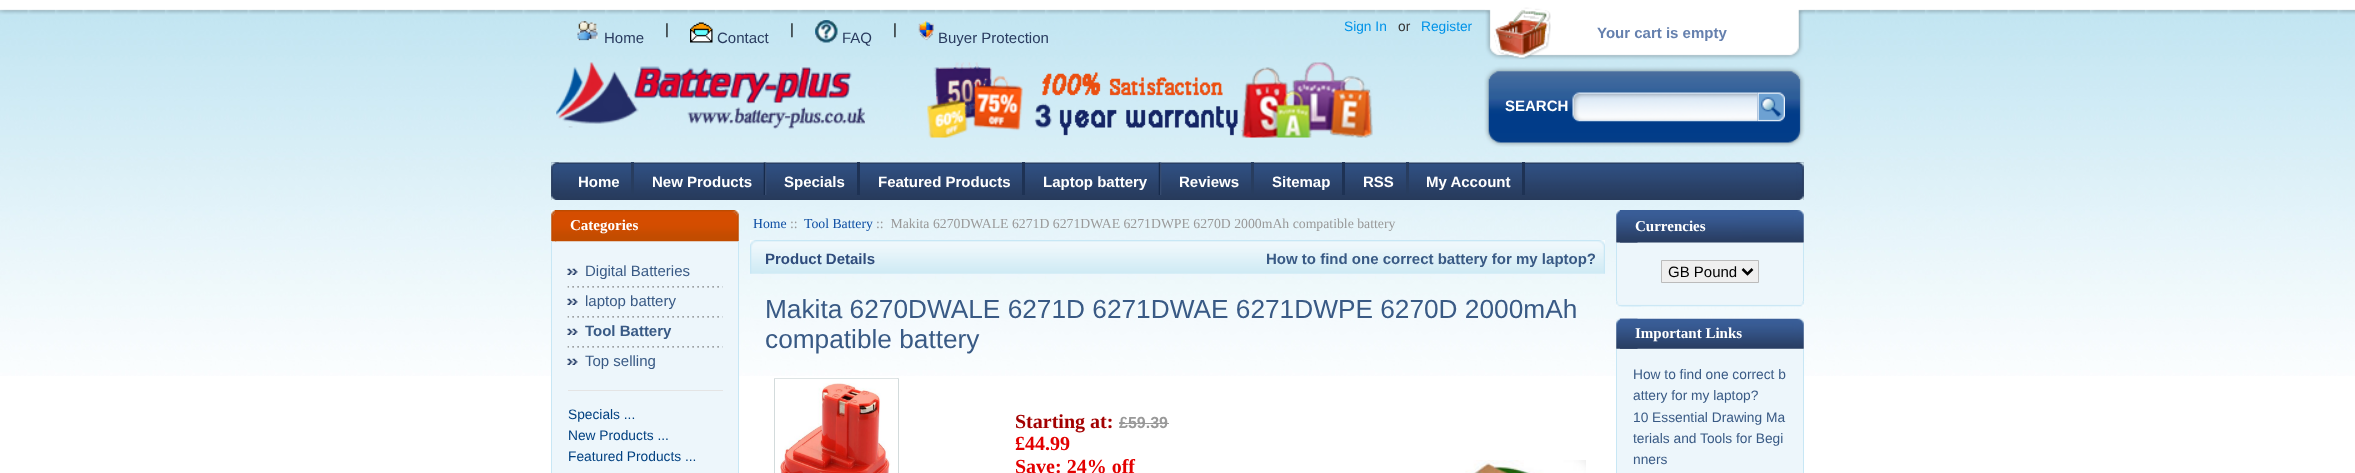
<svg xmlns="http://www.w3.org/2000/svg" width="2355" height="473">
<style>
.a{font:15px Liberation Sans;fill:#293b5f}
.b{font:15px Liberation Sans;fill:#000}
.c{font:13.75px Liberation Sans;fill:#0093e8}
.d{font:13.75px Liberation Sans;fill:#343434}
.e{font:bold 15px Liberation Sans;fill:#6580ae}
.f{font:bold 15px Liberation Sans;fill:#fff}
.g{font:bold 15px Liberation Serif;fill:#fff}
.h{font:15px Liberation Sans;fill:#395a85}
.i{font:bold 15px Liberation Sans;fill:#395a85}
.j{font:13.75px Liberation Sans;fill:#004080}
.k{font:13.75px Liberation Serif;fill:#0c4da3}
.l{font:13.75px Liberation Serif;fill:#999}
.m{font:bold 15px Liberation Sans;fill:#2f4c7c}
.n{font:26.25px Liberation Sans;fill:#395a85}
.o{font:bold 20px Liberation Serif;fill:#a30101}
.p{font:bold 16px Liberation Sans;fill:#999}
.q{font:bold 20px Liberation Serif;fill:#e30000}
.r{font:13.75px Liberation Sans;fill:#395a85}
</style>
<rect width="100%" height="100%" fill="#fff"/>
<image href="1.png" x="0" y="9" width="2355" height="367"/>
<image href="2.png" x="577" y="21" width="21" height="20"/>
<image href="3.png" x="690" y="22" width="23" height="21"/>
<image href="4.png" x="815" y="20" width="23" height="23"/>
<image href="5.png" x="918" y="21" width="16" height="20"/>
<image href="6.png" x="1485" y="9" width="319" height="51"/>
<image href="7.png" x="1494" y="7" width="57" height="52"/>
<image href="8.png" x="556" y="62" width="309" height="67"/>
<image href="9.png" x="927" y="62" width="446" height="76"/>
<image href="10.png" x="1484" y="66" width="41" height="81"/>
<image href="11.png" x="1525" y="66" width="280" height="81"/>
<image href="12.png" x="1572" y="92" width="186" height="30"/>
<image href="13.png" x="1757" y="92" width="28" height="30"/>
<image href="14.png" x="551" y="162" width="1253" height="38"/>
<image href="15.png" x="551" y="162" width="8" height="38"/>
<path fill="#283d5f" d="M631 162h3v33H631z"/>
<image href="16.png" x="763" y="162" width="4" height="33"/>
<path fill="#1e3254" d="M857 162h3v33H857z"/>
<path fill="#1e3254" d="M1022 162h3v33H1022z"/>
<image href="17.png" x="1158" y="162" width="4" height="33"/>
<path fill="#283d5f" d="M1251 162h3v33H1251z"/>
<path fill="#1e3254" d="M1342 162h3v33H1342z"/>
<path fill="#283d5f" d="M1406 162h3v33H1406z"/>
<path fill="#1e3254" d="M1522 162h3v33H1522z"/>
<image href="18.png" x="1796" y="162" width="8" height="38"/>
<path fill="#edf6fb" d="M551 210h188v263H551z"/>
<image href="19.png" x="551" y="210" width="6" height="32"/>
<image href="20.png" x="555" y="210" width="184" height="32"/>
<path fill="#c8e7f5" d="M738 241h1v232H738z"/>
<path fill="#c8e7f5" d="M551 241h1v232H551z"/>
<image href="21.png" x="567" y="268" width="11" height="7"/>
<image href="22.png" x="567" y="286" width="156" height="2"/>
<image href="21.png" x="567" y="298" width="11" height="7"/>
<image href="22.png" x="567" y="316" width="156" height="2"/>
<image href="21.png" x="567" y="328" width="11" height="7"/>
<image href="22.png" x="567" y="346" width="156" height="2"/>
<image href="21.png" x="567" y="358" width="11" height="7"/>
<path fill="#e4e4e4" d="M568 390h155v1H568z"/>
<image href="23.png" x="750" y="240" width="14" height="34"/>
<image href="24.png" x="761" y="240" width="844" height="34"/>
<path fill="none" stroke="#d3dbdc" d="M774.5 378.5h124v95H774.5z"/>
<image href="25.png" x="775" y="378" width="123" height="95"/>
<path fill="#999" d="M1119 423h50v1H1119z"/>
<image href="26.png" x="1465" y="460" width="121" height="13"/>
<path fill="#edf6fb" d="M1616 210h188v96H1616z"/>
<image href="27.png" x="1616" y="210" width="22" height="33"/>
<image href="28.png" x="1620" y="210" width="184" height="33"/>
<path fill="#c8e7f5" d="M1803 243h1v58H1803z"/>
<path fill="#c8e7f5" d="M1616 243h1v58H1616z"/>
<path fill="#efefef" stroke="#bbb" d="M1661.5 260.5h97v22H1661.5z"/>
<path fill="none" stroke="#000" stroke-width="2.5" d="M1742.5 269l5 5l5-5"/>
<image href="29.png" x="1616" y="301" width="26" height="6"/>
<image href="30.png" x="1621" y="301" width="183" height="6"/>
<path fill="#edf6fb" d="M1616 319h188v154H1616z"/>
<image href="31.png" x="1616" y="318" width="22" height="31"/>
<image href="32.png" x="1620" y="318" width="184" height="31"/>
<path fill="#c8e7f5" d="M1803 349h1v124H1803z"/>
<path fill="#c8e7f5" d="M1616 349h1v124H1616z"/>
<text class="a" x="604" y="43">Home</text>
<text class="b" x="665" y="34">|</text>
<text class="a" x="717" y="43">Contact</text>
<text class="b" x="790" y="34">|</text>
<text class="a" x="842" y="43">FAQ</text>
<text class="b" x="893" y="34">|</text>
<text class="a" x="938" y="43">Buyer Protection</text>
<text class="c" x="1344" y="31">Sign In</text>
<text class="d" x="1398" y="31">or</text>
<text class="c" x="1421" y="31">Register</text>
<text class="e" x="1597" y="38">Your cart is empty</text>
<text class="f" x="1505" y="111">SEARCH</text>
<text class="f" x="578" y="187">Home</text>
<text class="f" x="652" y="187">New Products</text>
<text class="f" x="784" y="187">Specials</text>
<text class="f" x="878" y="187">Featured Products</text>
<text class="f" x="1043" y="187">Laptop battery</text>
<text class="f" x="1179" y="187">Reviews</text>
<text class="f" x="1272" y="187">Sitemap</text>
<text class="f" x="1363" y="187">RSS</text>
<text class="f" x="1426" y="187">My Account</text>
<text class="g" x="570" y="230">Categories</text>
<text class="h" x="585" y="276">Digital Batteries</text>
<text class="h" x="585" y="306">laptop battery</text>
<text class="i" x="585" y="336">Tool Battery</text>
<text class="h" x="585" y="366">Top selling</text>
<text class="j" x="568" y="419">Specials ...</text>
<text class="j" x="568" y="440">New Products ...</text>
<text class="j" x="568" y="461">Featured Products ...</text>
<text class="k" x="753" y="228">Home</text>
<text class="l" x="790" y="228">::</text>
<text class="k" x="804" y="228">Tool Battery</text>
<text class="l" xml:space="preserve" x="876" y="228">::  Makita 6270DWALE 6271D 6271DWAE 6271DWPE 6270D 2000mAh compatible battery</text>
<text class="m" x="765" y="264">Product Details</text>
<text class="i" x="1266" y="264">How to find one correct battery for my laptop?</text>
<text class="n" x="765" y="318">Makita 6270DWALE 6271D 6271DWAE 6271DWPE 6270D 2000mAh</text>
<text class="n" x="765" y="348">compatible battery</text>
<text class="o" x="1015" y="428">Starting at:</text>
<text class="p" x="1119" y="428">£59.39</text>
<text class="q" x="1015" y="450">£44.99</text>
<text class="q" x="1015" y="473">Save: 24% off</text>
<text class="g" x="1635" y="231">Currencies</text>
<text class="b" x="1668" y="277">GB Pound</text>
<text class="g" x="1635" y="338">Important Links</text>
<text class="r" x="1633" y="379">How to find one correct b</text>
<text class="r" x="1633" y="400">attery for my laptop?</text>
<text class="r" x="1633" y="422">10 Essential Drawing Ma</text>
<text class="r" x="1633" y="443">terials and Tools for Begi</text>
<text class="r" x="1633" y="464">nners</text>
</svg>
